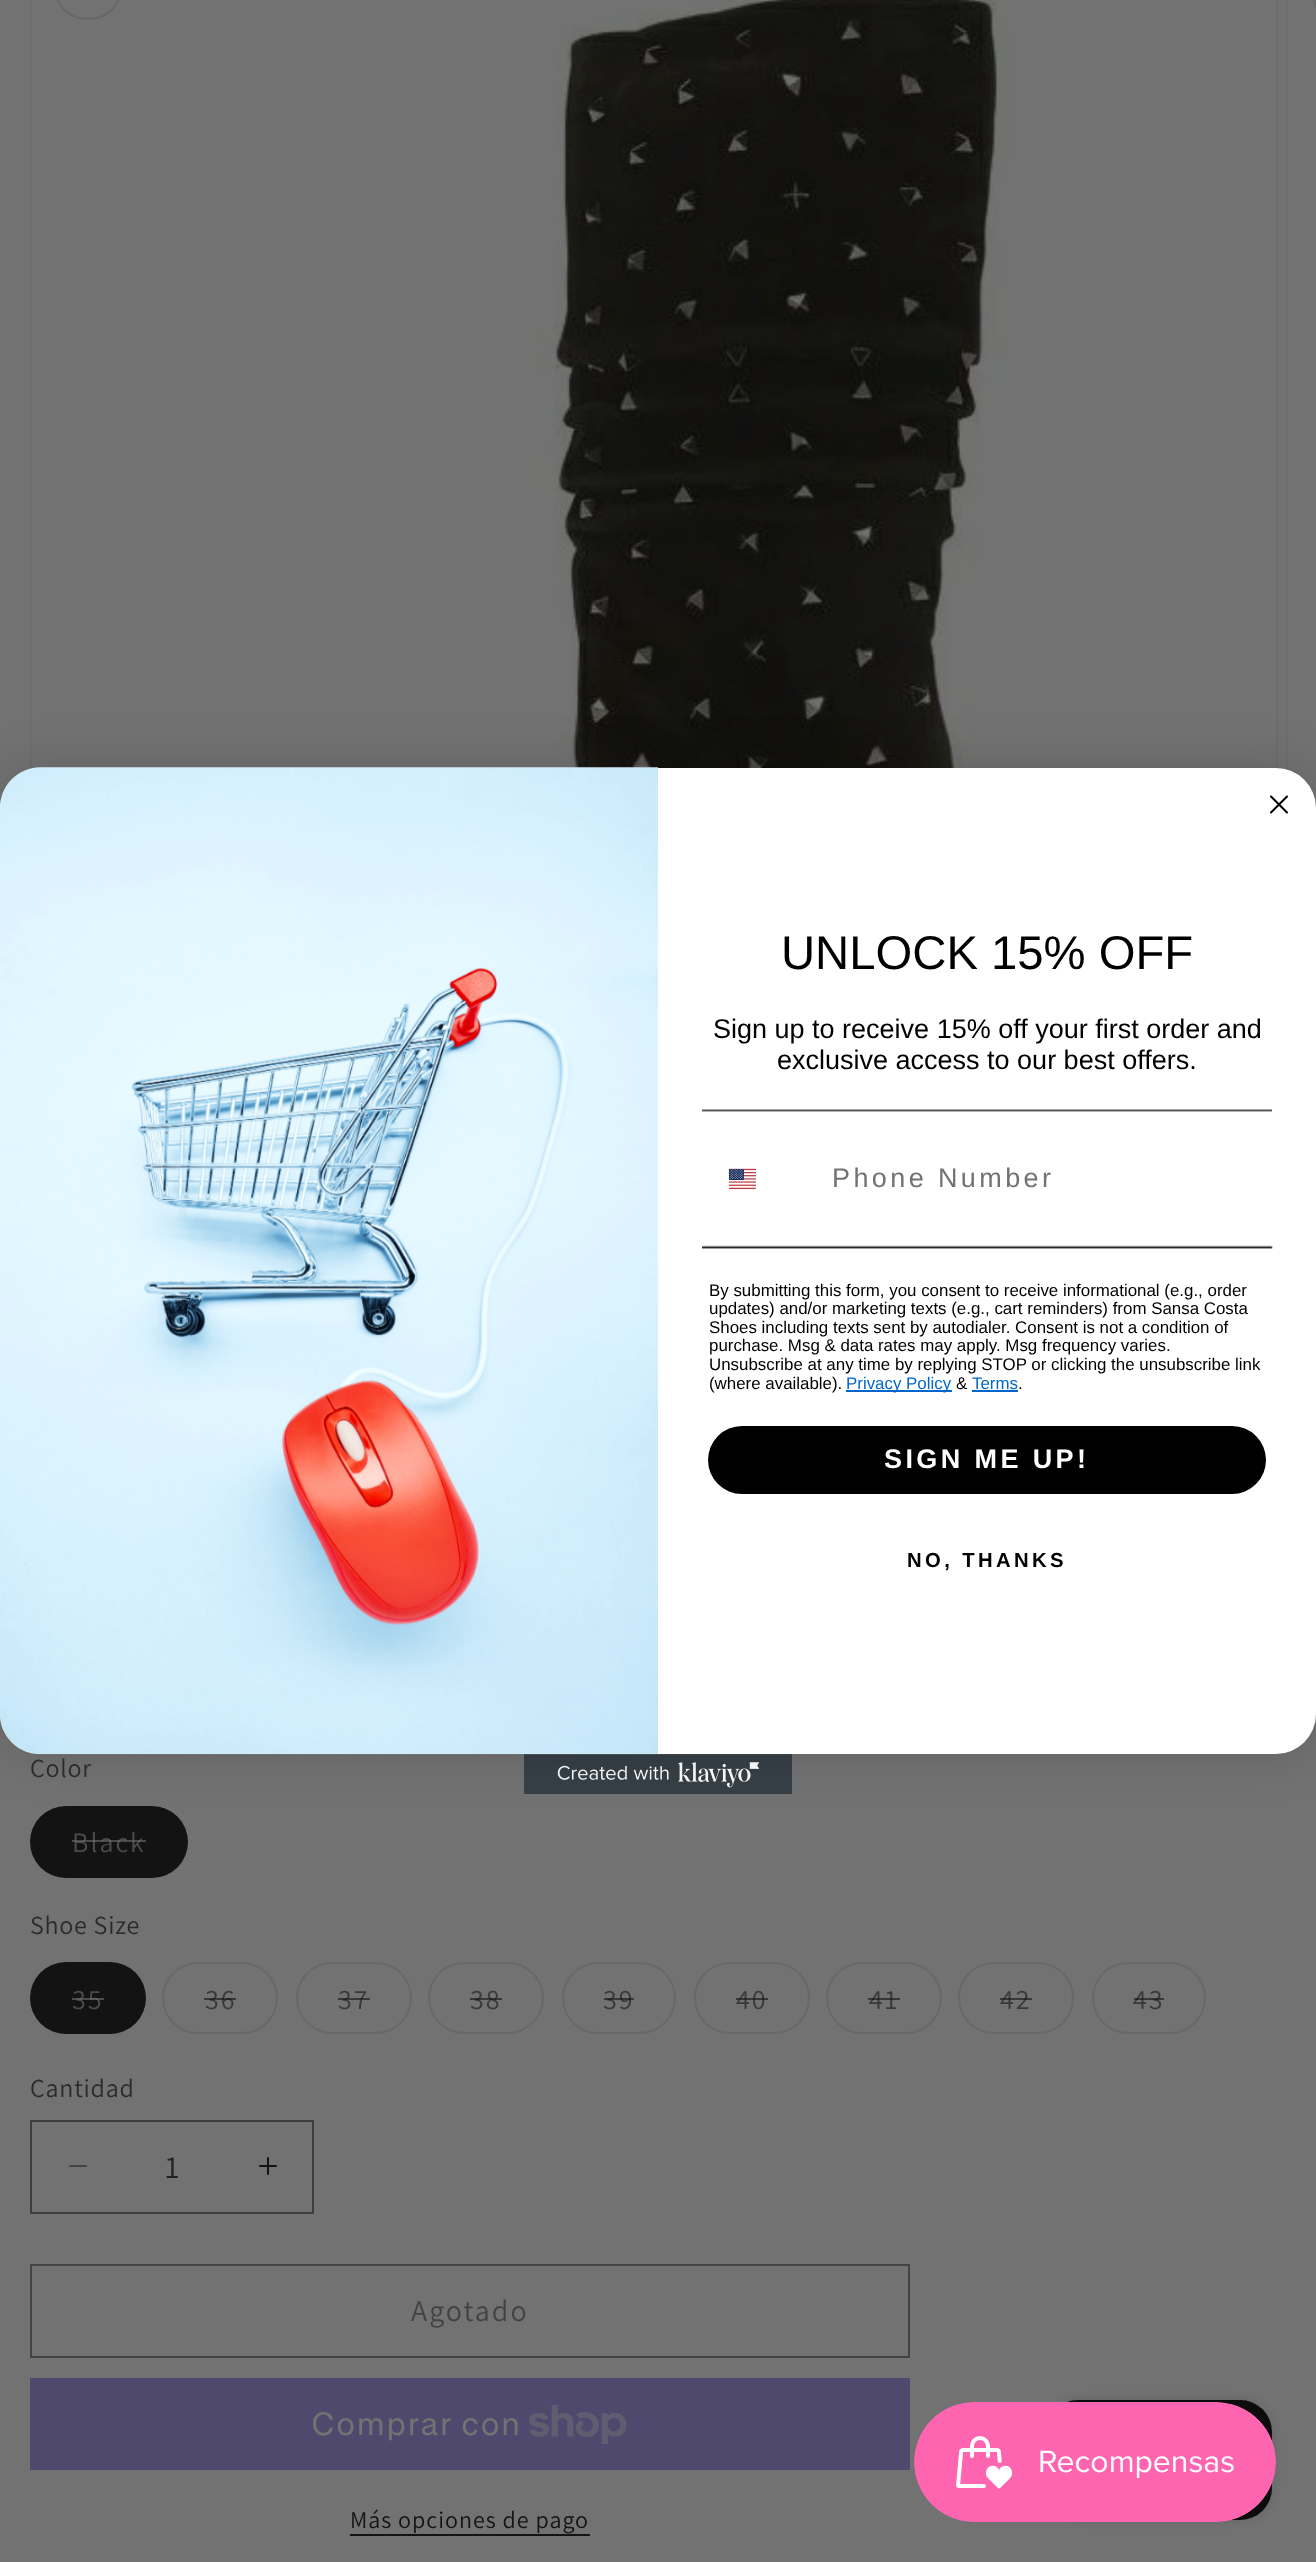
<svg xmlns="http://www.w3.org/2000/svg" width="1316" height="2562">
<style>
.a{font:47.25px Liberation Sans;fill:#000}
.b{font:27px Liberation Sans;fill:#000}
.c{font:27px Liberation Sans;letter-spacing:3.4px;fill:#727272}
.d{font:16.9px Liberation Sans;fill:#000}
.e{font:16.9px Liberation Sans;fill:#06c}
.f{font:bold 27px Liberation Sans;letter-spacing:3.4px;fill:#fff}
.g{font:bold 20.25px Liberation Sans;letter-spacing:3.4px;fill:#000}
.h{font:26px Assistant;letter-spacing:0.75px;fill:#2b2b2b}
.i{font:28px Assistant;letter-spacing:2px;fill:#4c4c4c}
.j{font:28px Assistant;letter-spacing:2px;fill:#393939}
.k{font:32px Assistant;fill:#222}
.l{font:30px Assistant;letter-spacing:2px;fill:#434343}
.m{font:32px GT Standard;letter-spacing:1.25px;fill:#727272}
.n{font:24px Assistant;letter-spacing:1px;fill:#131313}
</style>
<rect width="100%" height="100%" fill="#727272"/>
<image href="5.png" x="524" y="1754" width="268" height="40"/>
<path fill="none" stroke="#6d6d6d" stroke-width="2" d="M31 -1h1246v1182H31z"/>
<image href="6.png" x="309" y="0" width="702" height="768"/>
<path fill="none" stroke="#6d6d6d" stroke-width="2" d="M1287 -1h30v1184H1287z"/>
<rect fill="#131313" x="30" y="1806" width="158" height="72" rx="36"/>
<rect fill="#00000026" filter="blur(25.5px)" y="768" width="1316" height="986" rx="40"/>
<rect fill="#fff" y="768" width="1316" height="986" rx="40"/>
<path fill="none" stroke="#000" stroke-width="2" stroke-linecap="round" stroke-linejoin="round" d="M1271 796.5l16 16m-16 0l16-16z"/>
<image href="1.png" x="0" y="767" width="658" height="988"/>
<image href="2.png" x="701" y="1109" width="571" height="3"/>
<image href="3.png" x="728" y="1168" width="28" height="22"/>
<image href="4.png" x="702" y="1245" width="571" height="4"/>
<path fill="#06c" d="M846 1390h106v2H846z"/>
<path fill="#06c" d="M972 1390h46v2H972z"/>
<rect fill="#000" x="708" y="1426" width="558" height="68" rx="34"/>
<rect fill="none" stroke="#686868" stroke-width="2" x="57" y="-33" width="62" height="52" rx="31"/>
<rect fill="none" stroke="#686868" stroke-width="2" x="1313" y="-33" width="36" height="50" rx="31"/>
<rect fill="#131313" x="30" y="1962" width="116" height="72" rx="36"/>
<rect fill="none" stroke="#686868" stroke-width="2" x="163" y="1963" width="114" height="70" rx="35"/>
<rect fill="none" stroke="#686868" stroke-width="2" x="297" y="1963" width="114" height="70" rx="35"/>
<rect fill="none" stroke="#686868" stroke-width="2" x="429" y="1963" width="114" height="70" rx="35"/>
<rect fill="none" stroke="#686868" stroke-width="2" x="563" y="1963" width="112" height="70" rx="35"/>
<rect fill="none" stroke="#686868" stroke-width="2" x="695" y="1963" width="114" height="70" rx="35"/>
<rect fill="none" stroke="#686868" stroke-width="2" x="827" y="1963" width="114" height="70" rx="35"/>
<rect fill="none" stroke="#686868" stroke-width="2" x="959" y="1963" width="114" height="70" rx="35"/>
<rect fill="none" stroke="#686868" stroke-width="2" x="1093" y="1963" width="112" height="70" rx="35"/>
<image href="7.png" x="69" y="2165" width="18" height="2"/>
<image href="8.png" x="259" y="2157" width="18" height="18"/>
<path fill="none" stroke="#3e3e3e" stroke-width="2" d="M31 2121h282v92H31z"/>
<path fill="none" stroke="#434343" stroke-width="2" d="M31 2265h878v92H31z"/>
<path fill="#50496e" d="M30 2378h880v92H30z"/>
<image href="9.png" x="529" y="2405" width="98" height="39"/>
<path fill="#131313" d="M350 2534h240v2H350z"/>
<rect fill="#0c0c0c26" filter="blur(5px)" x="1046" y="2400" width="226" height="120" rx="32"/>
<rect fill="#0c0c0c" x="1046" y="2400" width="226" height="120" rx="32"/>
<image href="10.png" x="914" y="2402" width="362" height="120"/>
<text class="a" x="781" y="969">UNLOCK 15% OFF</text>
<text class="b" x="713" y="1038">Sign up to receive 15% off your first order and</text>
<text class="b" x="777" y="1069">exclusive access to our best offers.</text>
<text class="c" x="832" y="1187">Phone Number</text>
<text class="d" x="709" y="1296">By submitting this form, you consent to receive informational (e.g., order</text>
<text class="d" x="709" y="1314">updates) and/or marketing texts (e.g., cart reminders) from Sansa Costa</text>
<text class="d" x="709" y="1333">Shoes including texts sent by autodialer. Consent is not a condition of</text>
<text class="d" x="709" y="1351">purchase. Msg &amp; data rates may apply. Msg frequency varies.</text>
<text class="d" x="709" y="1370">Unsubscribe at any time by replying STOP or clicking the unsubscribe link</text>
<text class="d" x="709" y="1389">(where available).</text>
<text class="e" x="846" y="1389">Privacy Policy</text>
<text class="d" x="956" y="1389">&amp;</text>
<text class="e" x="972" y="1389">Terms</text>
<text class="d" x="1018" y="1389">.</text>
<text class="f" x="884" y="1468">SIGN ME UP!</text>
<text class="g" x="907" y="1567">NO, THANKS</text>
<text class="h" x="30" y="1777">Color</text>
<text class="i" x="72" y="1852">Black</text>
<path fill="#72727299" d="M72 1840h74v2H72z"/>
<text class="h" x="30" y="1934">Shoe Size</text>
<text class="i" x="72" y="2009">35</text>
<path fill="#72727299" d="M72 1998h32v2H72z"/>
<text class="j" x="205" y="2009">36</text>
<path fill="#13131399" d="M204 1998h32v2H204z"/>
<text class="j" x="338" y="2009">37</text>
<path fill="#13131399" d="M338 1998h32v2H338z"/>
<text class="j" x="470" y="2009">38</text>
<path fill="#13131399" d="M470 1998h32v2H470z"/>
<text class="j" x="603" y="2009">39</text>
<path fill="#13131399" d="M604 1998h30v2H604z"/>
<text class="j" x="736" y="2009">40</text>
<path fill="#13131399" d="M736 1998h32v2H736z"/>
<text class="j" x="869" y="2009">41</text>
<path fill="#13131399" d="M868 1998h32v2H868z"/>
<text class="j" x="1000" y="2009">42</text>
<path fill="#13131399" d="M1000 1998h32v2H1000z"/>
<text class="j" x="1133" y="2009">43</text>
<path fill="#13131399" d="M1134 1998h30v2H1134z"/>
<text class="h" x="30" y="2097">Cantidad</text>
<text class="k" x="165" y="2178">1</text>
<text class="l" x="411" y="2321">Agotado</text>
<text class="m" x="311" y="2435">Comprar con</text>
<text class="n" x="350" y="2528">Más opciones de pago</text>
</svg>
